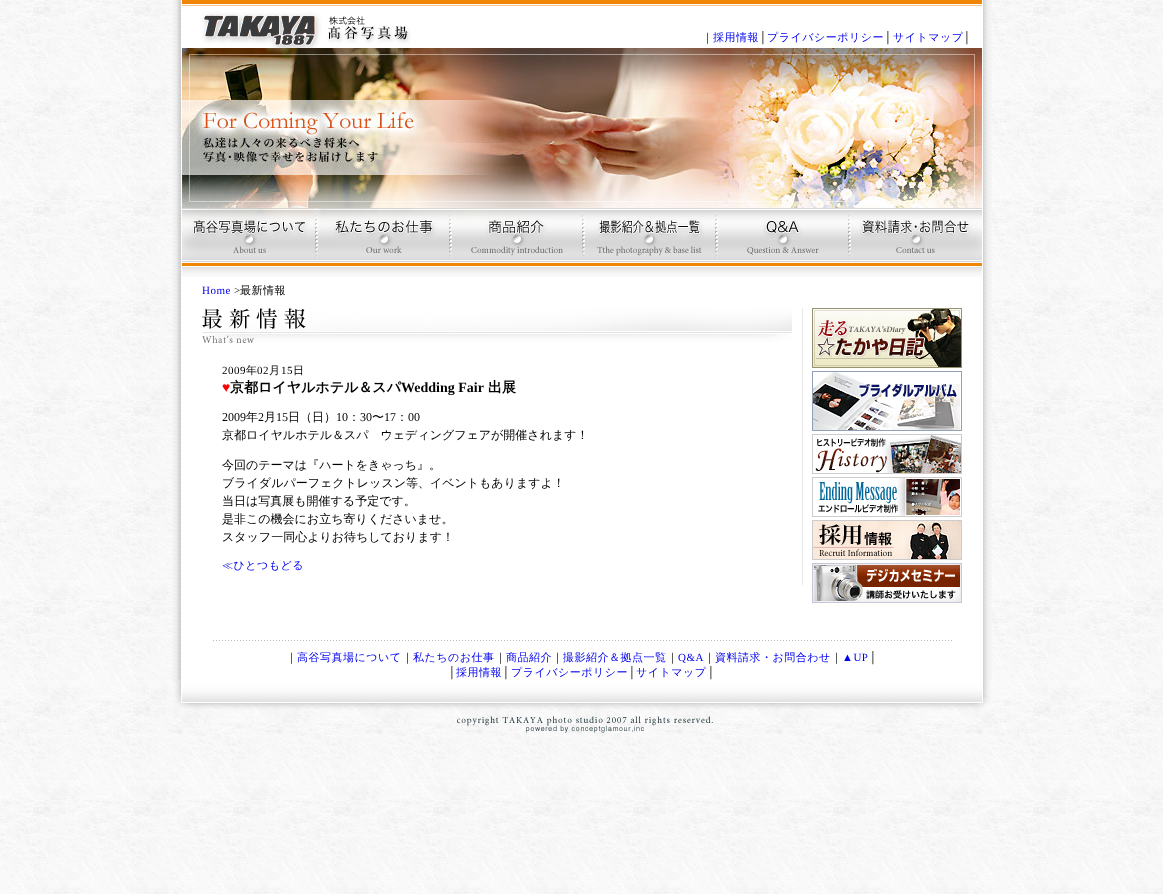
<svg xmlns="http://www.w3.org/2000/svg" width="1163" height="894">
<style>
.a{font:500 11px WenQuanYi Zen Hei;letter-spacing:0.5px;fill:#000}
.b{font:500 11px WenQuanYi Zen Hei;letter-spacing:0.5px;fill:#00e}
.c{font:11px Liberation Serif;letter-spacing:0.5px;fill:#000}
.d{font:11px Liberation Serif;letter-spacing:0.5px;fill:#00e}
.e{font:bold 14px Liberation Serif;fill:#f00}
.f{font:bold 14px WenQuanYi Zen Hei;fill:#000}
.g{font:bold 14px Liberation Serif;fill:#000}
.h{font:12px Liberation Serif;fill:#000}
.i{font:500 12px WenQuanYi Zen Hei;fill:#000}
</style>
<rect width="100%" height="100%" fill="#fff"/>
<image href="1.png" x="0" y="0" width="1163" height="894"/>
<image href="2.png" x="172" y="0" width="820" height="606"/>
<image href="3.png" x="182" y="0" width="800" height="48"/>
<image href="4.png" x="182" y="48" width="800" height="160"/>
<image href="5.png" x="182" y="208" width="800" height="69"/>
<path fill="#e8e8e8" d="M802 308h1v277H802z"/>
<image href="6.png" x="202" y="308" width="590" height="35"/>
<image href="7.png" x="812" y="308" width="150" height="60"/>
<image href="8.png" x="812" y="371" width="150" height="60"/>
<image href="9.png" x="812" y="434" width="150" height="40"/>
<image href="10.png" x="812" y="477" width="150" height="40"/>
<image href="11.png" x="812" y="520" width="150" height="40"/>
<image href="12.png" x="812" y="563" width="150" height="40"/>
<image href="13.png" x="172" y="606" width="820" height="74"/>
<image href="14.png" x="213" y="640" width="739" height="1"/>
<image href="15.png" x="172" y="680" width="820" height="53"/>
<text class="a" x="702" y="41">｜</text>
<text class="b" x="713" y="41">採用情報</text>
<text class="c" x="759" y="41">│</text>
<text class="b" x="767" y="41">プライバシーポリシー</text>
<text class="c" x="884" y="41">│</text>
<text class="b" x="893" y="41">サイトマップ</text>
<text class="c" x="963" y="41">│</text>
<text class="d" x="202" y="294">Home</text>
<text class="c" x="234" y="294">&gt;</text>
<text class="a" x="240" y="294">最新情報</text>
<text class="c" x="222" y="374">2009</text>
<text class="a" x="246" y="374">年</text>
<text class="c" x="257" y="374">02</text>
<text class="a" x="269" y="374">月</text>
<text class="c" x="281" y="374">15</text>
<text class="a" x="293" y="374">日</text>
<text class="e" x="222" y="392">♥</text>
<text class="f" x="230" y="392">京都ロイヤルホテル＆スパ</text>
<text class="g" x="401" y="392">Wedding Fair</text>
<text class="f" x="488" y="392">出展</text>
<text class="h" x="222" y="421">2009</text>
<text class="i" x="246" y="421">年</text>
<text class="h" x="258" y="421">2</text>
<text class="i" x="264" y="421">月</text>
<text class="h" x="276" y="421">15</text>
<text class="i" x="288" y="421">日（日）</text>
<text class="h" x="336" y="421">10</text>
<text class="i" x="348" y="421">：</text>
<text class="h" x="360" y="421">30</text>
<text class="i" x="372" y="421">〜</text>
<text class="h" x="384" y="421">17</text>
<text class="i" x="396" y="421">：</text>
<text class="h" x="408" y="421">00</text>
<text class="i" x="222" y="439">京都ロイヤルホテル＆スパ　ウェディングフェアが開催されます！</text>
<text class="i" x="222" y="469">今回のテーマは『ハートをきゃっち』。</text>
<text class="i" x="222" y="487">ブライダルパーフェクトレッスン等、イベントもありますよ！</text>
<text class="i" x="222" y="505">当日は写真展も開催する予定です。</text>
<text class="i" x="222" y="523">是非この機会にお立ち寄りくださいませ。</text>
<text class="i" x="222" y="541">スタッフ一同心よりお待ちしております！</text>
<text class="b" x="222" y="569">≪ひとつもどる</text>
<text class="a" x="286" y="661">｜</text>
<text class="b" x="297" y="661">高谷写真場について</text>
<text class="a" x="402" y="661">｜</text>
<text class="b" x="413" y="661">私たちのお仕事</text>
<text class="a" x="495" y="661">｜</text>
<text class="b" x="506" y="661">商品紹介</text>
<text class="a" x="552" y="661">｜</text>
<text class="b" x="563" y="661">撮影紹介＆拠点一覧</text>
<text class="a" x="667" y="661">｜</text>
<text class="d" x="678" y="661">Q&amp;A</text>
<text class="a" x="704" y="661">｜</text>
<text class="b" x="715" y="661">資料請求・お問合わせ</text>
<text class="a" x="831" y="661">｜</text>
<text class="d" x="842" y="661">▲UP</text>
<text class="c" x="869" y="661">│</text>
<text class="c" x="448" y="676">│</text>
<text class="b" x="456" y="676">採用情報</text>
<text class="c" x="502" y="676">│</text>
<text class="b" x="511" y="676">プライバシーポリシー</text>
<text class="c" x="628" y="676">│</text>
<text class="b" x="636" y="676">サイトマップ</text>
<text class="c" x="707" y="676">│</text>
</svg>
